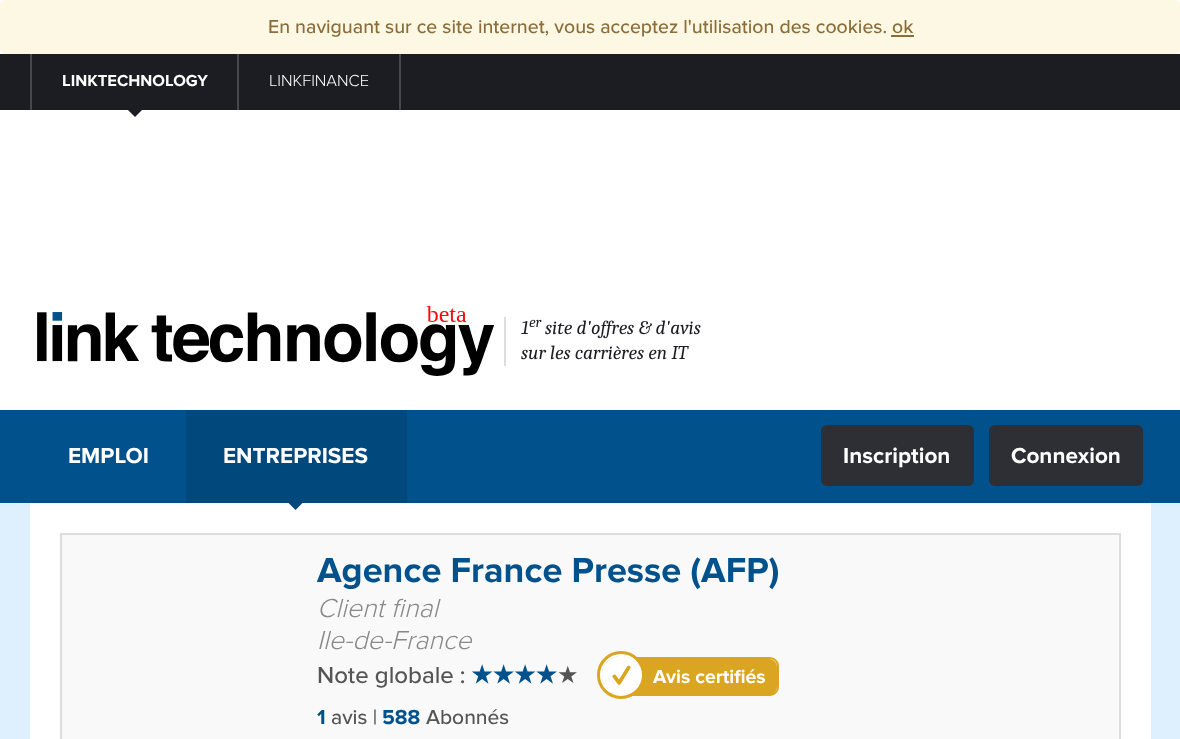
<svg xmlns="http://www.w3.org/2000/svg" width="1180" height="739">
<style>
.a{font:500 19.5px Proxima Nova;fill:#8a6d3b}
.b{font:bold 16.5px Proxima Nova;fill:#fff}
.c{font:300 16.5px Proxima Nova;fill:#fff}
.d{font:italic 19.5px Caladea;fill:#1c1d22}
.e{font:italic 15px Caladea;fill:#1c1d22}
.f{font:bold 22.5px Proxima Nova;fill:#fff}
.g{font:bold 36px Proxima Nova;fill:#01528c}
.h{font:italic 300 27px Proxima Nova;fill:#888}
.i{font:500 24px Proxima Nova;fill:#555}
.j{font:bold 24px DejaVu Sans;fill:#01528c}
.k{font:24px DejaVu Sans;fill:#555}
.l{font:27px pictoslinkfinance;fill:#daa520}
.m{font:bold 19.5px Proxima Nova;fill:#fff}
.n{font:bold 21px Proxima Nova;fill:#01528c}
.o{font:500 21px Proxima Nova;fill:#555}
</style>
<rect width="100%" height="100%" fill="#fff"/>
<rect fill="#fcf8e3" width="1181" height="54" rx="6"/>
<path fill="#8a6d3b" d="M891 35h23v2H891z"/>
<path fill="#1c1d22" d="M0 54h1180v56H0z"/>
<path fill="#46474d" d="M399 54h2v56H399z"/>
<path fill="#46474d" d="M30 54h2v56H30z"/>
<path fill="#1c1d22" d="M127.5 109.5h15l-7.5 7.5z"/>
<path fill="#46474d" d="M237 54h2v56H237z"/>
<image href="1.png" x="37" y="306" width="457" height="70"/>
<path fill="#ddd" d="M504 317h2v49H504z"/>
<path fill="#01528c" d="M0 410h1180v93H0z"/>
<path fill="#01497d" d="M186 410h221v93H186z"/>
<path fill="#def0fd" d="M0 503h1180v236H0z"/>
<path fill="#fff" d="M30 503h1121v236H30z"/>
<path fill="#01497d" d="M288 502.5h15l-7.5 7.5z"/>
<rect fill="#2e2f35" x="821" y="425" width="153" height="61" rx="6"/>
<rect fill="#2e2f35" x="989" y="425" width="154" height="61" rx="6"/>
<path fill="#f9f9f9" stroke="#ddd" stroke-width="2" d="M61 534h1059v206H61z"/>
<rect fill="none" stroke="#daa520" stroke-width="2" x="615" y="658" width="163" height="37" rx="8"/>
<rect fill="#daa520" stroke="#daa520" stroke-width="2" x="616" y="660" width="160" height="34" rx="7"/>
<circle fill="none" stroke="#daa520" stroke-width="5" cx="621" cy="675" r="21.5"/>
<circle fill="none" stroke="#fff" stroke-width="2" cx="621" cy="675" r="20"/>
<circle fill="#fff" cx="621.5" cy="675.5" r="19.5"/>
<text class="a" x="268" y="33">En naviguant sur ce site internet, vous acceptez l'utilisation des cookies. ok</text>
<text class="b" x="62" y="86">LINKTECHNOLOGY</text>
<text class="c" x="269" y="86">LINKFINANCE</text>
<text class="d" x="521" y="334">1</text>
<text class="e" x="529" y="327">er</text>
<text class="d" x="545" y="334">site d'offres &amp; d'avis</text>
<text class="d" x="521" y="359">sur les carrières en IT</text>
<text class="f" x="68" y="463">EMPLOI</text>
<text class="f" x="223" y="463">ENTREPRISES</text>
<text class="f" x="843" y="463">Inscription</text>
<text class="f" x="1011" y="463">Connexion</text>
<text class="g" x="317" y="582">Agence France Presse (AFP)</text>
<text class="h" x="317" y="617">Client final</text>
<text class="h" x="317" y="649">Ile-de-France</text>
<text class="i" x="317" y="683">Note globale :</text>
<text class="j" x="471" y="683">★★★★</text>
<text class="k" x="557" y="683">★</text>
<text class="l" x="608" y="687">6</text>
<text class="m" x="653" y="683">Avis certifiés</text>
<text class="n" x="317" y="724">1</text>
<text class="o" x="331" y="724">avis |</text>
<text class="n" x="382" y="724">588</text>
<text class="o" x="426" y="724">Abonnés</text>
</svg>
